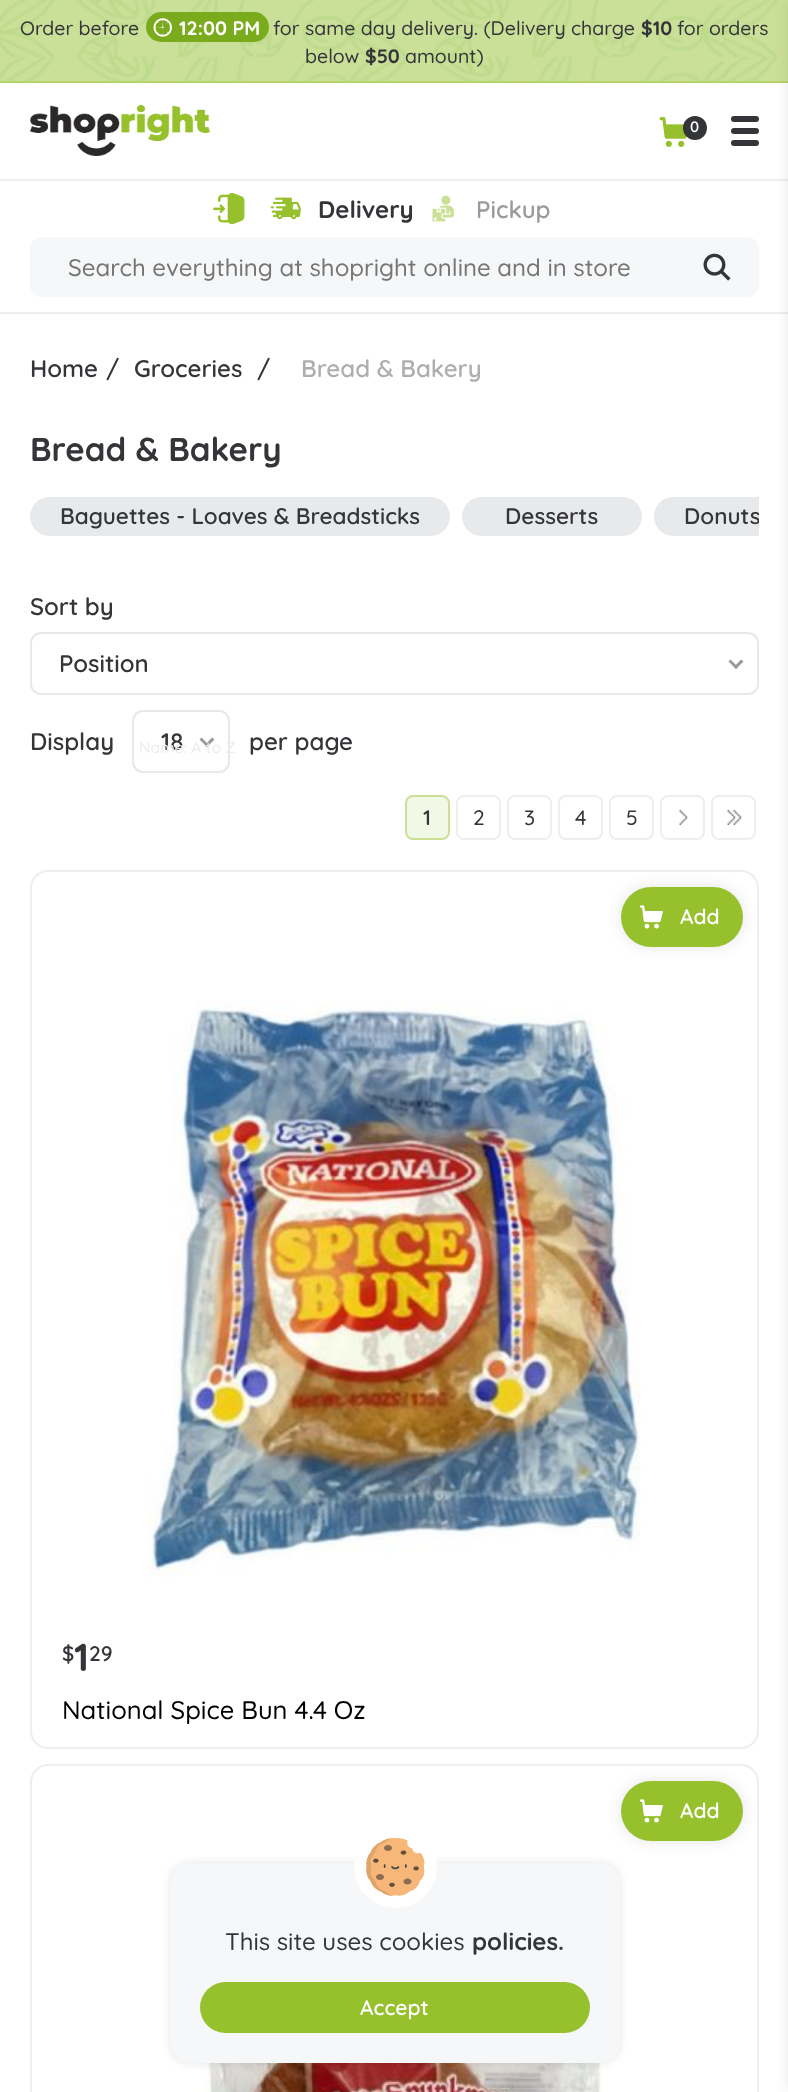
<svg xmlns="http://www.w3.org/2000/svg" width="788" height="2092">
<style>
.a{font:500 19.5px Quicksand;fill:#343538}
.b{font:bold 19.5px Quicksand;fill:#fff}
.c{font:bold 19.5px Quicksand;fill:#343538}
.d{font:600 15px Quicksand;fill:#fff}
.e{font:bold 24px Quicksand;fill:#343538}
.f{font:600 24px Quicksand;fill:#9a9a9c}
.g{font:500 24px Quicksand;fill:#757575}
.h{font:600 24px Quicksand;fill:#343538}
.i{font:600 24px Quicksand;fill:#aeaeaf}
.j{font:bold 33px Quicksand;fill:#343538}
.k{font:600 22.5px Quicksand;fill:#343538}
.l{font:500 15.75px Quicksand;fill:#ececed}
.m{font:600 21px Quicksand;fill:#343538}
.n{font:500 21px Quicksand;fill:#343538}
.o{font:600 21px Quicksand;fill:#fff}
.p{font:bold 39px Quicksand;fill:#343538}
.q{font:500 25.5px Quicksand;fill:#000}
.r{font:500 24px Quicksand;fill:#343538}
</style>
<defs>
<clipPath id="clip1"><path d="M30 497h729v61H30z"/></clipPath>
</defs>
<rect width="100%" height="100%" fill="#fff"/>
<path fill="#eee" d="M0 312h788v2H0z"/>
<path fill="#cbe096" d="M0 0h788v81H0z"/>
<image href="1.png" x="0" y="0" width="778" height="81"/>
<path fill="#b6d46c" d="M0 81h788v2H0z"/>
<rect fill="#79ab1c" x="146" y="12" width="123" height="30" rx="15"/>
<image href="2.png" x="153" y="18" width="19" height="19"/>
<path fill="#eee" d="M0 179h788v2H0z"/>
<image href="3.png" x="30" y="105" width="180" height="51"/>
<rect fill="#343538" x="731" y="116" width="28" height="6" rx="3"/>
<rect fill="#343538" x="731" y="128" width="28" height="6" rx="3"/>
<rect fill="#343538" x="731" y="140" width="28" height="6" rx="3"/>
<image href="4.png" x="659" y="117" width="28" height="30"/>
<circle fill="#343538" cx="695" cy="128" r="12"/>
<image href="5.png" x="213" y="193" width="32" height="32"/>
<image href="6.png" x="270" y="197" width="31" height="23"/>
<image href="7.png" x="432" y="195" width="22" height="27"/>
<path fill="#0000001a" filter="blur(7.5px)" d="M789 0h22v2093H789z"/>
<rect fill="#f6f7f8" x="30" y="237" width="729" height="60" rx="12"/>
<image href="8.png" x="703" y="253" width="28" height="28"/>
<rect fill="#e8e9eb" x="30" y="497" width="420" height="39" rx="19.5"/>
<rect fill="#e8e9eb" x="462" y="497" width="180" height="39" rx="19.5"/>
<path fill="#e8e9eb" d="M673.5 497h85.5v39h-85.5c-11 0-19.5-8.5-19.5-19.5c0-11 8.5-19.5 19.5-19.5z"/>
<rect fill="none" stroke="#e8e8e8" stroke-width="2" x="31" y="633" width="727" height="61" rx="10"/>
<path fill="#999" d="M741 659.5l2.5 2l-7.5 7.5l-2-2z"/>
<path fill="#999" d="M730.5 659.5l7.5 7.5l-2 2l-7.5-7.5z"/>
<rect fill="none" stroke="#e8e8e8" stroke-width="2" x="133" y="711" width="96" height="61" rx="10"/>
<path fill="#999" d="M212 737.5l2.5 2l-7.5 7.5l-2-2z"/>
<path fill="#999" d="M201.5 737.5l7.5 7.5l-2 2l-7.5-7.5z"/>
<rect fill="#f2f8e6" stroke="#cbe096" stroke-width="2" x="406" y="796" width="43" height="43" rx="7"/>
<rect fill="none" stroke="#eee" stroke-width="2" x="457" y="796" width="43" height="43" rx="7"/>
<rect fill="none" stroke="#eee" stroke-width="2" x="508" y="796" width="43" height="43" rx="7"/>
<rect fill="none" stroke="#eee" stroke-width="2" x="559" y="796" width="43" height="43" rx="7"/>
<rect fill="none" stroke="#eee" stroke-width="2" x="610" y="796" width="43" height="43" rx="7"/>
<image href="9.png" x="679" y="810" width="9" height="15"/>
<rect fill="none" stroke="#eee" stroke-width="2" x="661" y="796" width="43" height="43" rx="7"/>
<image href="10.png" x="727" y="810" width="15" height="15"/>
<rect fill="none" stroke="#eee" stroke-width="2" x="712" y="796" width="43" height="43" rx="7"/>
<rect fill="none" stroke="#eee" stroke-width="2" x="31" y="871" width="727" height="877" rx="17"/>
<rect fill="#0000001a" filter="blur(7.5px)" x="621" y="887" width="122" height="60" rx="30"/>
<rect fill="#96c12d" x="621" y="887" width="122" height="60" rx="30"/>
<image href="11.png" x="639" y="905" width="24" height="24"/>
<image href="12.png" x="148" y="1000" width="493" height="577"/>
<rect fill="none" stroke="#eee" stroke-width="2" x="31" y="1765" width="727" height="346" rx="17"/>
<rect fill="#0000001a" filter="blur(7.5px)" x="621" y="1781" width="122" height="60" rx="30"/>
<rect fill="#96c12d" x="621" y="1781" width="122" height="60" rx="30"/>
<image href="11.png" x="639" y="1799" width="24" height="24"/>
<image href="13.png" x="187" y="2062" width="415" height="30"/>
<rect fill="#0000001a" filter="blur(4px)" x="170" y="1863" width="450" height="200" rx="20"/>
<rect fill="#f6f7f8" x="170" y="1863" width="450" height="200" rx="20"/>
<rect fill="#fff" x="354" y="1826" width="83" height="82" rx="41"/>
<image href="14.png" x="366" y="1838" width="59" height="58"/>
<rect fill="#96c12d" x="200" y="1982" width="390" height="51" rx="25.5"/>
<text class="a" x="20" y="35">Order before</text>
<text class="b" x="179" y="35">12:00 PM</text>
<text class="a" x="273" y="35">for same day delivery. (Delivery charge</text>
<text class="c" x="641" y="35">$10</text>
<text class="a" x="677" y="35">for orders</text>
<text class="a" x="305" y="63">below</text>
<text class="c" x="365" y="63">$50</text>
<text class="a" x="405" y="63">amount)</text>
<text class="d" x="690" y="132">0</text>
<text class="e" x="318" y="218">Delivery</text>
<text class="f" x="476" y="218">Pickup</text>
<text class="g" x="68" y="276">Search everything at shopright online and in store</text>
<text class="h" x="30" y="377">Home</text>
<text class="h" x="106" y="377">/</text>
<text class="h" x="134" y="377">Groceries</text>
<text class="h" x="257" y="377">/</text>
<text class="i" x="301" y="377">Bread &amp; Bakery</text>
<text class="j" x="30" y="461">Bread &amp; Bakery</text>
<text class="k" x="60" y="524">Baguettes - Loaves &amp; Breadsticks</text>
<text class="k" x="505" y="524">Desserts</text>
<g clip-path="url(#clip1)">
<text class="k" x="684" y="524">Donuts</text>
</g>
<text class="h" x="30" y="615">Sort by</text>
<text class="h" x="59" y="672">Position</text>
<text class="h" x="30" y="750">Display</text>
<text class="h" x="161" y="750">18</text>
<text class="l" x="139" y="753">Name: A to Z</text>
<text class="h" x="249" y="750">per page</text>
<text class="m" x="423" y="825">1</text>
<text class="n" x="473" y="825">2</text>
<text class="n" x="524" y="825">3</text>
<text class="n" x="575" y="825">4</text>
<text class="n" x="626" y="825">5</text>
<text class="o" x="680" y="924">Add</text>
<text class="m" x="62" y="1661">$</text>
<text class="p" x="74" y="1671">1</text>
<text class="m" x="89" y="1661">29</text>
<text class="q" x="62" y="1719">National Spice Bun 4.4 Oz</text>
<text class="o" x="680" y="1818">Add</text>
<text class="r" x="225" y="1950">This site uses cookies</text>
<text class="e" x="472" y="1950">policies.</text>
<text class="o" x="360" y="2015">Accept</text>
</svg>
